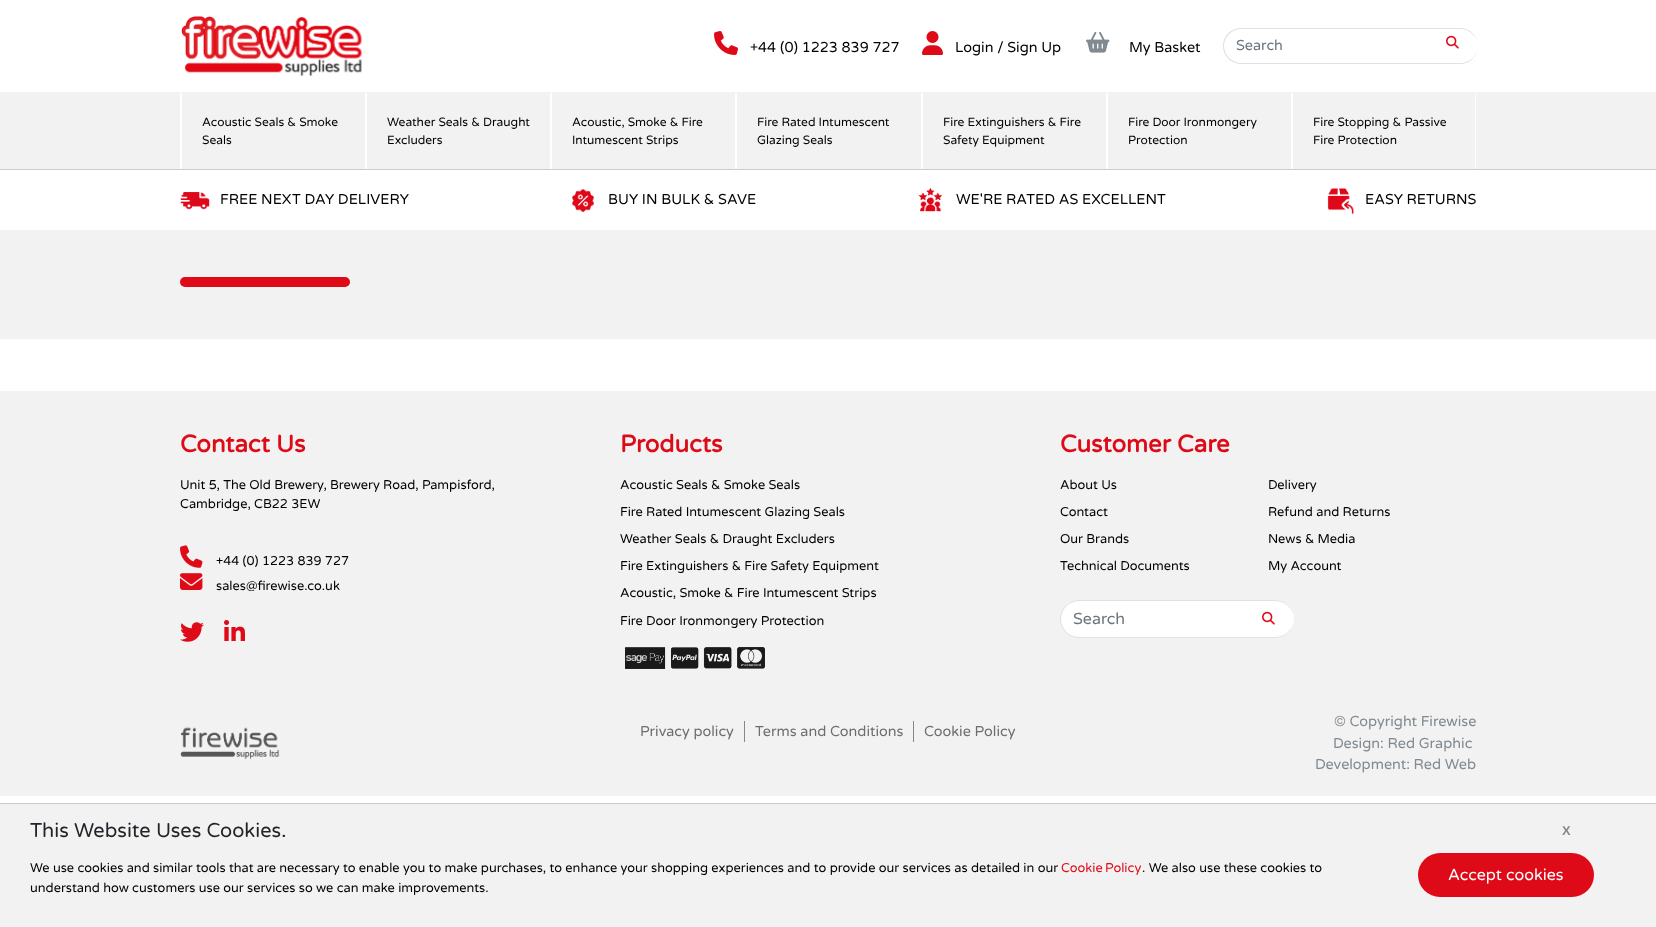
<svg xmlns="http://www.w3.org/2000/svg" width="1656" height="927">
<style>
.a{font:14.4px Varela Round;fill:#000}
.b{font:14.4px Varela Round;fill:#6c757d}
.c{font:12px Varela Round;fill:#000}
.d{font:bold 24px Varela Round;fill:#df0a18}
.e{font:12.8px Varela Round;fill:#000}
.f{font:16px Varela Round;fill:#6c757d}
.g{font:14.4px Varela Round;fill:#6c6e72}
.h{font:14.4px Varela Round;fill:#818a91}
.i{font:20px Varela Round;fill:#212529}
.j{font:bold 12.8px Liberation Sans;fill:#818a91}
.k{font:12.8px Varela Round;fill:#df0a18}
.l{font:16px Varela Round;fill:#fff}
</style>
<rect width="100%" height="100%" fill="#fff"/>
<image href="1.png" x="181" y="16" width="182" height="60"/>
<image href="2.png" x="714" y="31" width="24" height="24"/>
<image href="3.png" x="922" y="31" width="21" height="24"/>
<image href="4.png" x="1086" y="31" width="24" height="22"/>
<path fill="#dee2e6" fill-rule="evenodd" d="M1241 28h219c10 0 18 8 18 18c0 10-8 18-18 18h-219c-10 0-18-8-18-18c0-10 8-18 18-18zm0 1h219c10 0 18 8 18 17c0 9-8 17-18 17h-219c-9 0-17-8-17-17c0-9 8-17 17-17z"/>
<image href="5.png" x="1446" y="35" width="13" height="14"/>
<path fill="#f2f2f2" d="M0 92h1656v77H0z"/>
<path fill="#ccc" d="M0 169h1656v1H0z"/>
<path fill="#fff" d="M180 93h2v76H180z"/>
<path fill="#fff" d="M365 93h2v76H365z"/>
<path fill="#fff" d="M550 93h2v76H550z"/>
<path fill="#fff" d="M735 93h2v76H735z"/>
<path fill="#fff" d="M921 93h2v76H921z"/>
<path fill="#fff" d="M1106 93h2v76H1106z"/>
<path fill="#fff" d="M1475 93h1v76H1475z"/>
<path fill="#fff" d="M1291 93h2v76H1291z"/>
<path fill="#f2f2f2" d="M0 230h1656v109H0z"/>
<image href="6.png" x="180" y="192" width="30" height="18"/>
<image href="7.png" x="572" y="189" width="22" height="23"/>
<image href="8.png" x="918" y="187" width="24" height="25"/>
<image href="9.png" x="1327" y="188" width="27" height="27"/>
<rect fill="#df0a18" x="180" y="277" width="170" height="10" rx="5"/>
<path fill="#f2f2f2" d="M0 391h1656v405H0z"/>
<image href="10.png" x="180" y="545" width="23" height="23"/>
<image href="11.png" x="180" y="573" width="23" height="17"/>
<image href="12.png" x="180" y="622" width="24" height="20"/>
<image href="13.png" x="224" y="620" width="21" height="21"/>
<image href="14.png" x="625" y="647" width="140" height="22"/>
<path fill="#fff" d="M1079 601h196c10 0 19 8 19 18c0 10-9 18-19 18h-196c-10 0-18-8-18-18c0-10 8-18 18-18z"/>
<path fill="#dee2e6" fill-rule="evenodd" d="M1079 600h196c10 0 19 9 19 19c0 10-9 19-19 19h-196c-10 0-19-9-19-19c0-10 9-19 19-19zm0 1h196c10 0 19 8 19 18c0 10-9 18-19 18h-196c-10 0-18-8-18-18c0-10 8-18 18-18z"/>
<image href="5.png" x="1262" y="611" width="13" height="14"/>
<image href="15.png" x="180" y="727" width="100" height="33"/>
<path fill="#818a91" d="M744 721h1v21H744z"/>
<path fill="#818a91" d="M913 721h1v21H913z"/>
<path fill="#f2f2f2" d="M0 804h1656v123H0z"/>
<path fill="#ccc" d="M0 803h1656v1H0z"/>
<rect fill="#df0a18" x="1418" y="853" width="176" height="44" rx="22"/>
<text class="a" x="750" y="52">+44 (0) 1223 839 727</text>
<text class="a" x="955" y="52">Login / Sign Up</text>
<text class="a" x="1129" y="52">My Basket</text>
<text class="b" x="1236" y="50">Search</text>
<text class="c" x="202" y="126">Acoustic Seals &amp; Smoke</text>
<text class="c" x="202" y="144">Seals</text>
<text class="c" x="387" y="126">Weather Seals &amp; Draught</text>
<text class="c" x="387" y="144">Excluders</text>
<text class="c" x="572" y="126">Acoustic, Smoke &amp; Fire</text>
<text class="c" x="572" y="144">Intumescent Strips</text>
<text class="c" x="757" y="126">Fire Rated Intumescent</text>
<text class="c" x="757" y="144">Glazing Seals</text>
<text class="c" x="943" y="126">Fire Extinguishers &amp; Fire</text>
<text class="c" x="943" y="144">Safety Equipment</text>
<text class="c" x="1128" y="126">Fire Door Ironmongery</text>
<text class="c" x="1128" y="144">Protection</text>
<text class="c" x="1313" y="126">Fire Stopping &amp; Passive</text>
<text class="c" x="1313" y="144">Fire Protection</text>
<text class="a" x="220" y="204">FREE NEXT DAY DELIVERY</text>
<text class="a" x="608" y="204">BUY IN BULK &amp; SAVE</text>
<text class="a" x="956" y="204">WE'RE RATED AS EXCELLENT</text>
<text class="a" x="1365" y="204">EASY RETURNS</text>
<text class="d" x="180" y="452">Contact Us</text>
<text class="e" x="180" y="489">Unit 5, The Old Brewery, Brewery Road, Pampisford,</text>
<text class="e" x="180" y="508">Cambridge, CB22 3EW</text>
<text class="e" x="216" y="565">+44 (0) 1223 839 727</text>
<text class="e" x="216" y="590">sales@firewise.co.uk</text>
<text class="d" x="620" y="452">Products</text>
<text class="e" x="620" y="489">Acoustic Seals &amp; Smoke Seals</text>
<text class="e" x="620" y="516">Fire Rated Intumescent Glazing Seals</text>
<text class="e" x="620" y="543">Weather Seals &amp; Draught Excluders</text>
<text class="e" x="620" y="570">Fire Extinguishers &amp; Fire Safety Equipment</text>
<text class="e" x="620" y="597">Acoustic, Smoke &amp; Fire Intumescent Strips</text>
<text class="e" x="620" y="625">Fire Door Ironmongery Protection</text>
<text class="d" x="1060" y="452">Customer Care</text>
<text class="e" x="1060" y="489">About Us</text>
<text class="e" x="1268" y="489">Delivery</text>
<text class="e" x="1060" y="516">Contact</text>
<text class="e" x="1268" y="516">Refund and Returns</text>
<text class="e" x="1060" y="543">Our Brands</text>
<text class="e" x="1268" y="543">News &amp; Media</text>
<text class="e" x="1060" y="570">Technical Documents</text>
<text class="e" x="1268" y="570">My Account</text>
<text class="f" x="1073" y="624">Search</text>
<text class="g" x="640" y="736">Privacy policy</text>
<text class="g" x="755" y="736">Terms and Conditions</text>
<text class="g" x="924" y="736">Cookie Policy</text>
<text class="h" x="1334" y="726">© Copyright Firewise</text>
<text class="h" x="1333" y="748">Design: Red Graphic</text>
<text class="h" x="1315" y="769">Development: Red Web</text>
<text class="i" x="30" y="837">This Website Uses Cookies.</text>
<text class="j" x="1562" y="835">X</text>
<text class="e" x="30" y="872">We use cookies and similar tools that are necessary to enable you to make purchases, to enhance your shopping experiences and to provide our services as detailed in our</text>
<text class="k" x="1061" y="872" word-spacing="-1">Cookie Policy</text>
<text class="e" x="1142" y="872">. We also use these cookies to</text>
<text class="e" x="30" y="892">understand how customers use our services so we can make improvements.</text>
<text class="l" x="1448" y="880">Accept cookies</text>
</svg>
